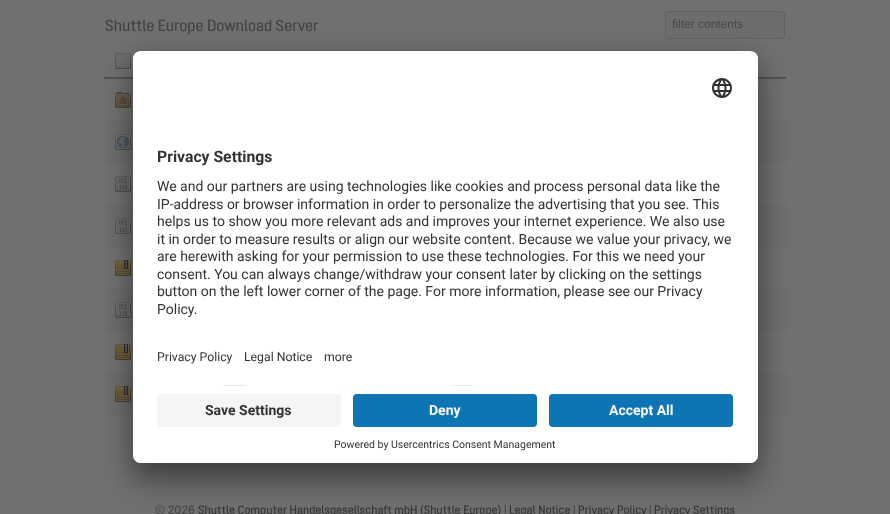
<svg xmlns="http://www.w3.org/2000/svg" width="890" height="514">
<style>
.a{font:16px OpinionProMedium;fill:#414244}
.b{font:12px Liberation Sans;fill:#474747}
.c{font:bold 15.75px Roboto;fill:#333}
.d{font:14px Roboto;fill:#333}
.e{font:12.25px Roboto;fill:#333}
.f{font:bold 14px Roboto;fill:#333}
.g{font:bold 14px Roboto;fill:#fafafa}
.h{font:10.5px Roboto;fill:#333}
.i{font:12px OpinionProMedium;fill:#414244}
.j{font:12px OpinionProMedium;fill:#333}
</style>
<defs>
<clipPath id="clip1"><rect x="133" y="51" width="625" height="412" rx="8"/></clipPath>
<clipPath id="clip2"><path d="M141 51h609c4.5 0 8 3.5 8 8v327h-625v-327c0-4.5 3.5-8 8-8z"/></clipPath>
</defs>
<rect width="100%" height="100%" fill="#707070"/>
<rect fill="#6d6d6d" x="665" y="11" width="120" height="28" rx="3"/>
<rect fill="none" stroke="#24242426" x="665.5" y="11.5" width="119" height="27" rx="2.5"/>
<path fill="#525252" d="M104 77h682v2H104z"/>
<image href="1.png" x="115" y="53" width="16" height="16"/>
<image href="2.png" x="115" y="92" width="16" height="16"/>
<path fill="#6d6d6d" d="M105 121h680v42H105z"/>
<image href="3.png" x="115" y="134" width="16" height="16"/>
<image href="4.png" x="115" y="176" width="16" height="16"/>
<path fill="#6d6d6d" d="M105 205h680v42H105z"/>
<image href="5.png" x="115" y="218" width="16" height="16"/>
<image href="6.png" x="115" y="260" width="16" height="16"/>
<path fill="#6d6d6d" d="M105 289h680v42H105z"/>
<image href="5.png" x="115" y="302" width="16" height="16"/>
<image href="6.png" x="115" y="344" width="16" height="16"/>
<path fill="#6d6d6d" d="M105 373h680v42H105z"/>
<image href="7.png" x="115" y="386" width="16" height="16"/>
<rect fill="#0000004d" filter="blur(14px)" x="133" y="71" width="625" height="412" rx="8"/>
<rect fill="#00000038" filter="blur(13px)" x="133" y="56" width="625" height="412" rx="8"/>
<rect fill="#fff" x="133" y="51" width="625" height="412" rx="8"/>
<g clip-path="url(#clip1)">
<g clip-path="url(#clip2)">
<path fill="#fff" d="M133 52h625v334H133z"/>
<path fill="#fff" d="M133 52h625v328H133z"/>
</g>
</g>
<image href="8.png" x="712" y="78" width="20" height="20"/>
<image href="9.png" x="222" y="385" width="26" height="1"/>
<path fill="#fafafa" d="M336 385h18v1H336z"/>
<image href="9.png" x="449" y="385" width="26" height="1"/>
<path fill="#fff" d="M133 386h625v69c0 4.5-3.5 8-8 8h-609c-4.5 0-8-3.5-8-8z"/>
<rect fill="#f5f5f5" x="157" y="394" width="184" height="33" rx="4"/>
<rect fill="#0e75b4" x="353" y="394" width="184" height="33" rx="4"/>
<rect fill="#0e75b4" x="549" y="394" width="184" height="33" rx="4"/>
<text class="a" x="105" y="31">Shuttle Europe Download Server</text>
<text class="b" x="672" y="28">filter contents</text>
<text class="c" x="157" y="162">Privacy Settings</text>
<text class="d" x="157" y="191">We and our partners are using technologies like cookies and process personal data like the</text>
<text class="d" x="157" y="209">IP-address or browser information in order to personalize the advertising that you see. This</text>
<text class="d" x="157" y="226">helps us to show you more relevant ads and improves your internet experience. We also use</text>
<text class="d" x="157" y="244">it in order to measure results or align our website content. Because we value your privacy, we</text>
<text class="d" x="157" y="261">are herewith asking for your permission to use these technologies. For this we need your</text>
<text class="d" x="157" y="279">consent. You can always change/withdraw your consent later by clicking on the settings</text>
<text class="d" x="157" y="296">button on the left lower corner of the page. For more information, please see our Privacy</text>
<text class="d" x="157" y="314">Policy.</text>
<text class="e" x="157" y="361">Privacy Policy</text>
<text class="e" x="244" y="361">Legal Notice</text>
<text class="e" x="324" y="361">more</text>
<text class="f" x="205" y="415">Save Settings</text>
<text class="g" x="429" y="415">Deny</text>
<text class="g" x="609" y="415">Accept All</text>
<text class="h" x="334" y="448">Powered by Usercentrics Consent Management</text>
<text class="i" x="155" y="514">© 2026</text>
<text class="j" x="198" y="514">Shuttle Computer Handelsgesellschaft mbH (Shuttle Europe)</text>
<text class="i" x="504" y="514">|</text>
<text class="j" x="509" y="514">Legal Notice</text>
<text class="i" x="573" y="514">|</text>
<text class="j" x="578" y="514">Privacy Policy</text>
<text class="i" x="649" y="514">|</text>
<text class="j" x="654" y="514">Privacy Settings</text>
</svg>
